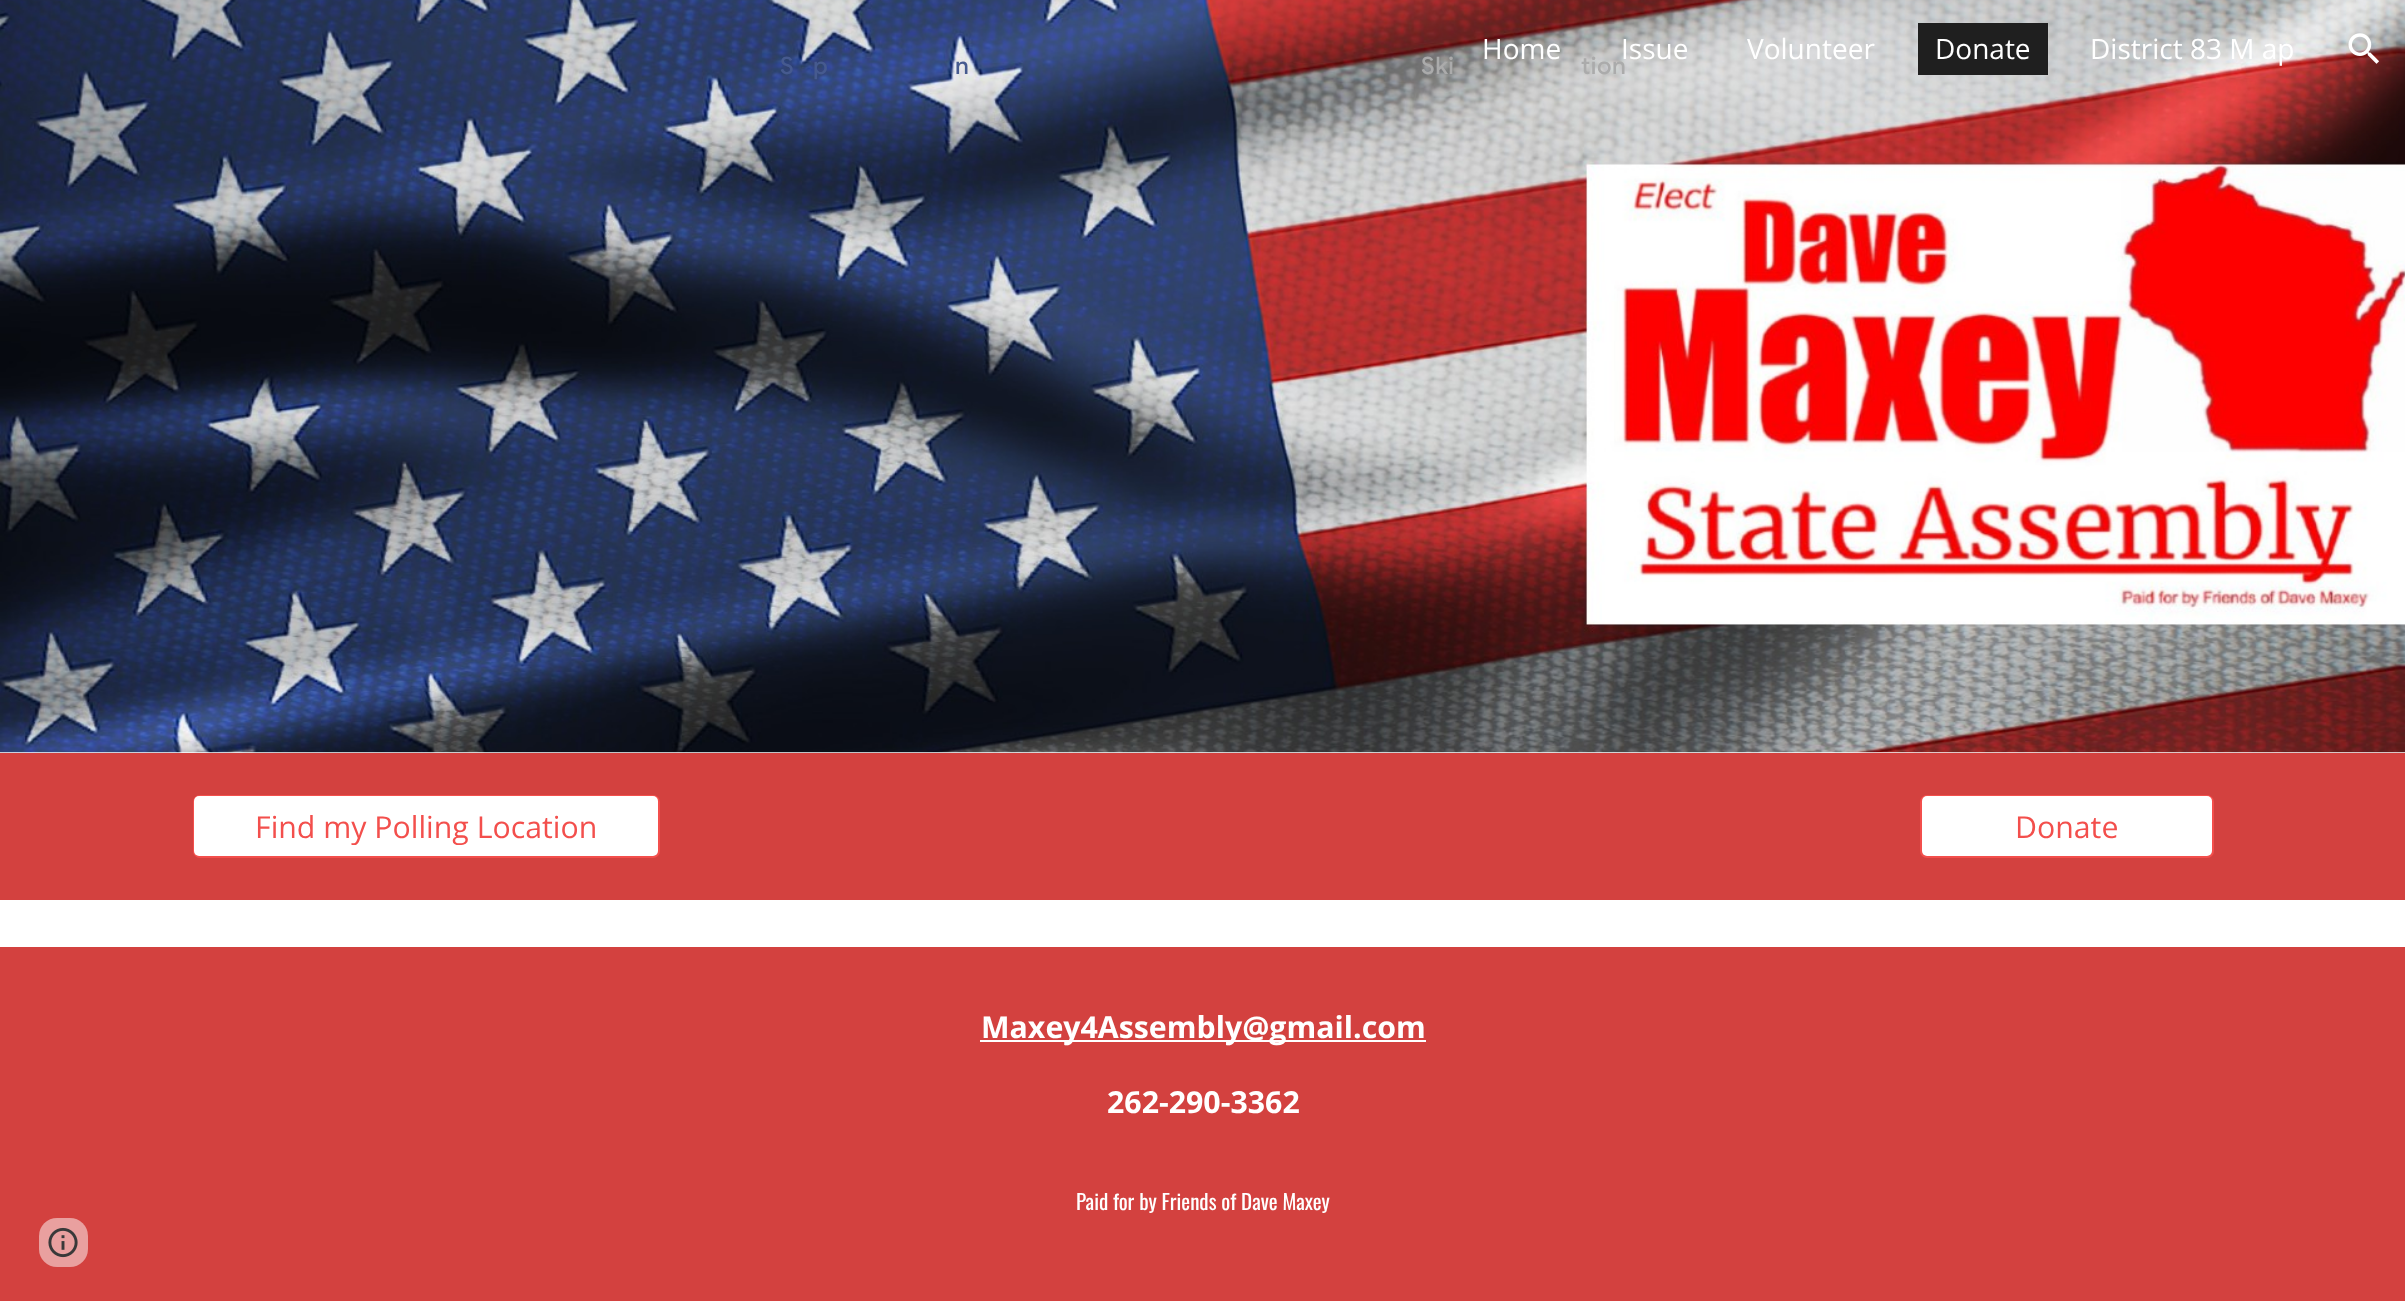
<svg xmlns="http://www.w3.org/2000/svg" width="2405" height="1301">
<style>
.a{font:28px Open Sans;fill:#fff}
.b{font:30.3px Open Sans;fill:#f34f4c}
.c{font:bold 30.3px Open Sans;fill:#fff}
.d{font:21px Oswald;fill:#fff}
.e{font:500 24px Google Sans;letter-spacing:0.5px;fill:#465a8f}
.f{font:500 24px Google Sans;letter-spacing:0.5px;fill:#ababab}
</style>
<defs>
<clipPath id="clip1"><path d="M215 807h422v38H215z"/></clipPath>
</defs>
<rect width="100%" height="100%" fill="#fff"/>
<image href="2.png" x="0" y="0" width="2405" height="753"/>
<path fill="#1f1f1f" d="M1918 23h130v52H1918z"/>
<image href="1.png" x="2348" y="33" width="31" height="31"/>
<path fill="#d3413f" d="M0 753h2405v147H0z"/>
<rect fill="none" stroke="#f34f4c" stroke-width="2" x="194" y="796" width="465" height="61" rx="6"/>
<rect fill="#fff" x="194" y="796" width="464" height="60" rx="5"/>
<rect fill="none" stroke="#f34f4c" stroke-width="2" x="1921" y="796" width="292" height="61" rx="6"/>
<rect fill="#fff" x="1922" y="796" width="290" height="60" rx="5"/>
<path fill="#d3413f" d="M0 947h2405v354H0z"/>
<path fill="#fff" d="M980 1040h446v2H980z"/>
<rect fill="#e9a09f" x="39" y="1218" width="49" height="49" rx="18"/>
<image href="3.png" x="48" y="1227" width="30" height="31"/>
<text class="a" x="1482" y="59">Home</text>
<text class="a" x="1621" y="59">Issue</text>
<text class="a" x="1747" y="59">Volunteer</text>
<text class="a" x="1935" y="59">Donate</text>
<text class="a" x="2090" y="59">District 83 M ap</text>
<g clip-path="url(#clip1)">
<text class="b" x="255" y="838">Find my Polling Location</text>
</g>
<text class="b" x="2015" y="838">Donate</text>
<text class="c" x="981" y="1038">Maxey4Assembly@gmail.com</text>
<text class="c" x="1107" y="1113">262-290-3362</text>
<text class="d" x="1076" y="1210">Paid for by Friends of Dave Maxey</text>
<text class="e" x="780" y="74">S</text>
<text class="e" x="813" y="74">p</text>
<text class="e" x="955" y="74">n</text>
<text class="f" x="1421" y="74">Ski</text>
<text class="f" x="1581" y="74">tion</text>
</svg>
